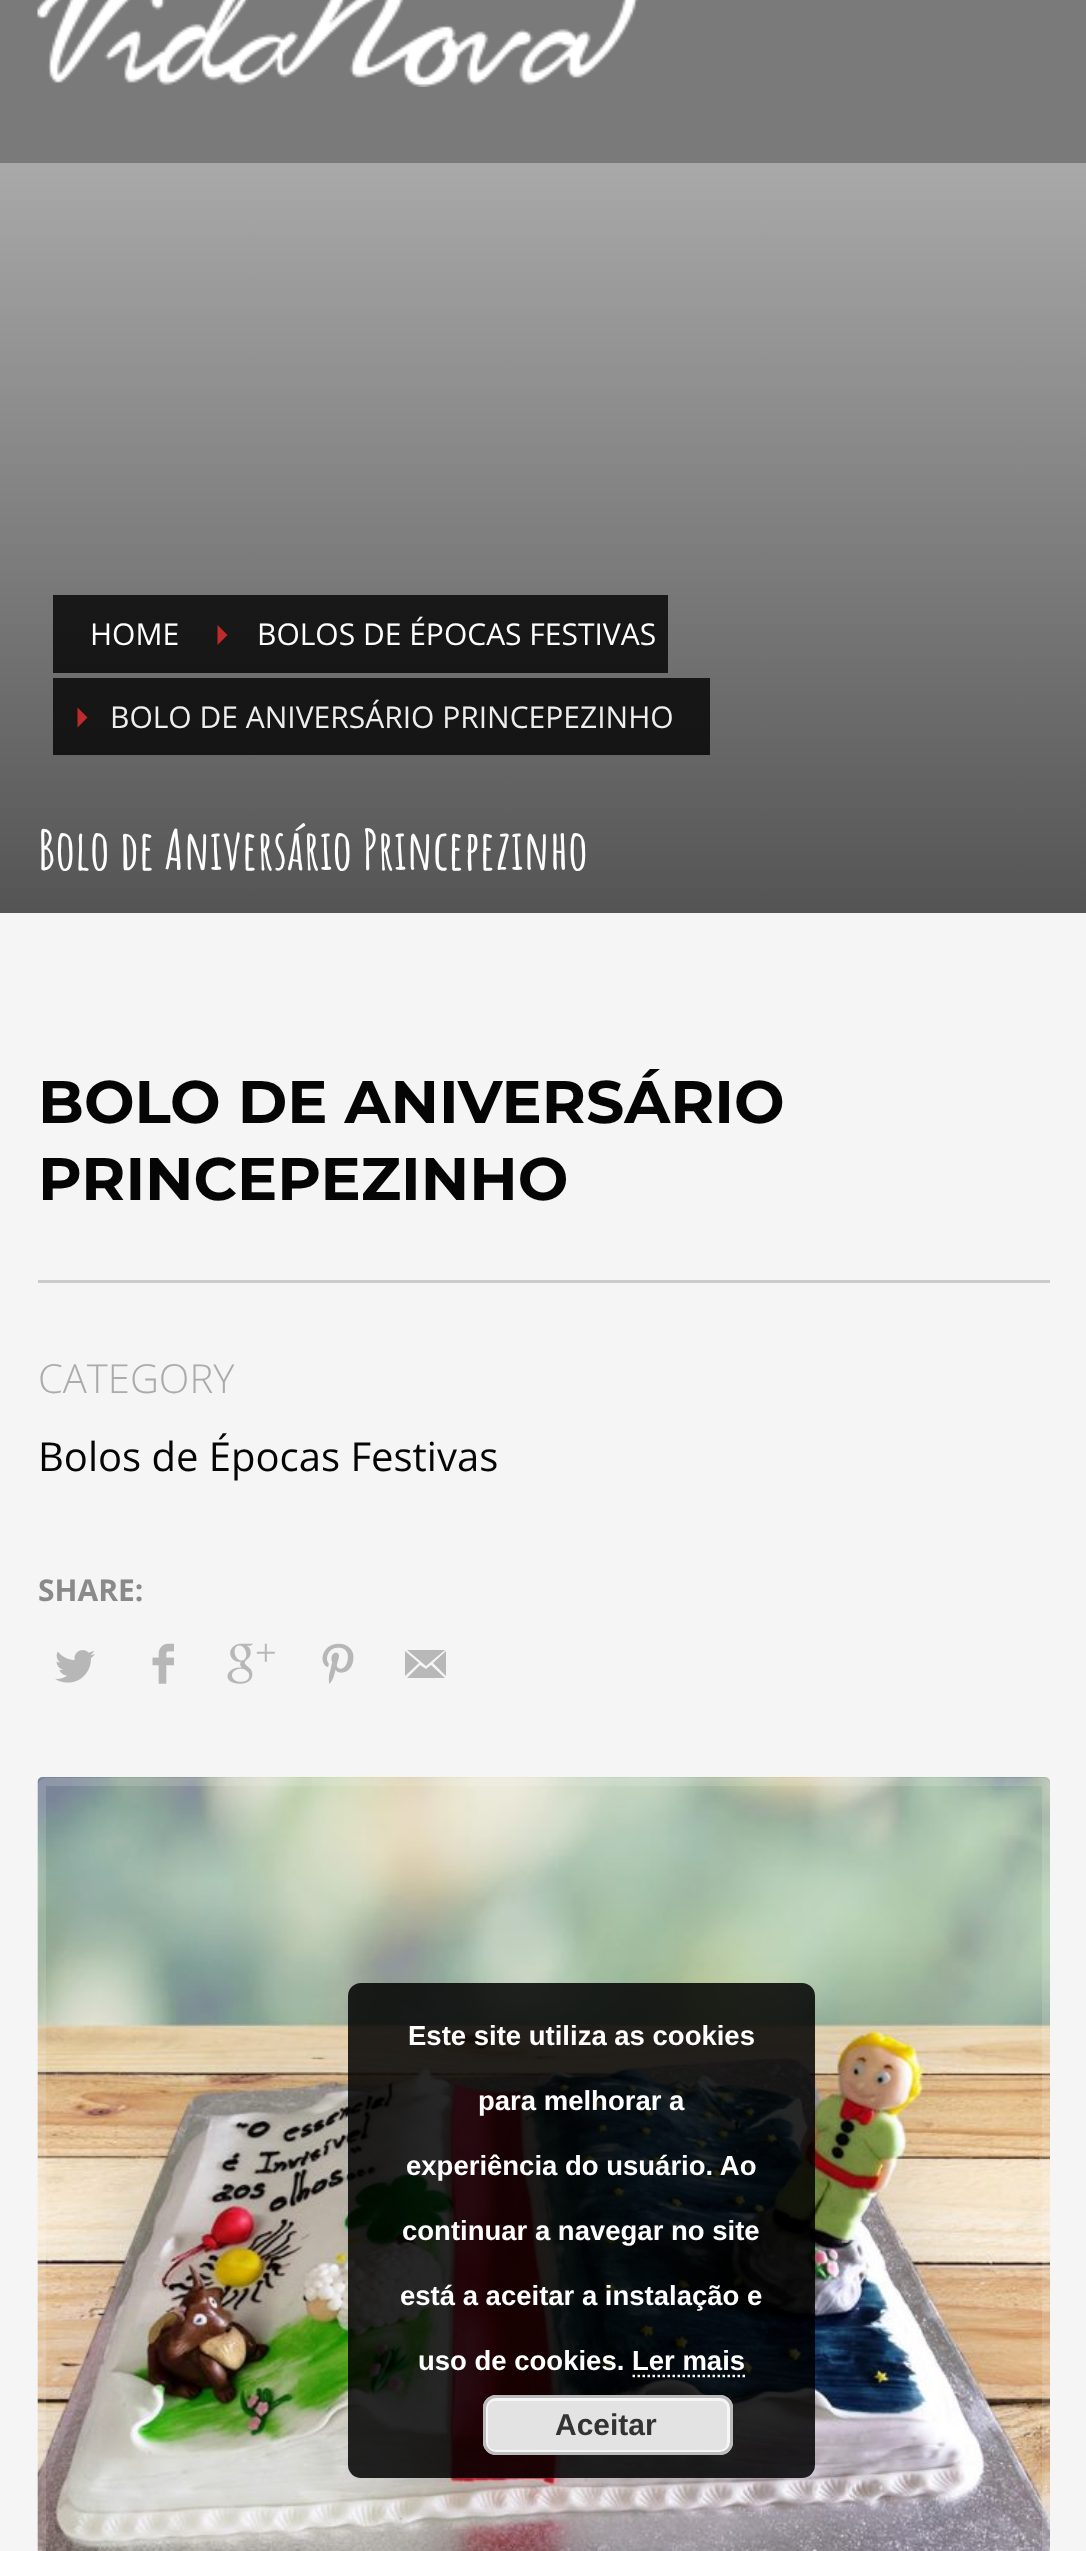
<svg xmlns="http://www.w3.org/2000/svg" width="1086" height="2551">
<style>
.a{font:30px Open Sans;fill:#fff}
.b{font:30px Open Sans;fill:#eee}
.c{font:bold 55px Amatic SC;fill:#fff}
.d{font:bold 60px Montserrat;fill:#050505}
.e{font:300 40px Open Sans;fill:#ababab}
.f{font:40px Open Sans;fill:#050505}
.g{font:bold 30px Open Sans;fill:#8a8a8a}
.h{font:bold 27.5px Liberation Sans;fill:#fff}
.i{font:bold 30px Liberation Sans;fill:#333}
</style>
<defs>
<linearGradient id="g1" gradientUnits="userSpaceOnUse" x1="544" y1="162" x2="544" y2="913"><stop offset="0" stop-color="#a9a9a9"/><stop offset="1" stop-color="#545454"/></linearGradient>
<linearGradient id="g2" gradientUnits="userSpaceOnUse" x1="544" y1="162" x2="544" y2="913"><stop offset="0" stop-color="#222"/><stop offset="1" stop-color="#111"/></linearGradient>
</defs>
<rect width="100%" height="100%" fill="#f5f5f5"/>
<path fill="#7a7a7a" d="M0 0h1086v163H0z"/>
<image href="1.png" x="37" y="0" width="601" height="87"/>
<path fill="url(#g1)" d="M0 163h1086v750H0z"/>
<path fill="url(#g2)" d="M53 678h657v77H53z"/>
<path fill="url(#g2)" d="M193 595h475v78H193z"/>
<path fill="url(#g2)" d="M53 595h140v78H53z"/>
<path fill="#bf2b2b" d="M217.5 645v-20l10 10z"/>
<path fill="#bf2b2b" d="M77.5 727.5v-20l10 10z"/>
<path fill="#cbcbcb" d="M38 1280h1012v3H38z"/>
<image href="2.png" x="55" y="1650" width="40" height="33"/>
<image href="3.png" x="152" y="1643" width="22" height="41"/>
<image href="4.png" x="227" y="1643" width="48" height="41"/>
<image href="5.png" x="322" y="1643" width="32" height="41"/>
<path fill="#b8b8b8" d="M405 1675v-24l14 12l-14 13zm2-25h38l-19 16zm0 28l13-13l6 4l5-4l14 13zm26-15l13-12v25z"/>
<image href="6.png" x="37" y="1777" width="1013" height="774"/>
<rect fill="none" stroke="#ffffff26" stroke-width="8" x="42" y="1782" width="1004" height="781" rx="4"/>
<rect fill="#000000d9" x="348" y="1983" width="467" height="495" rx="13"/>
<path fill="none" stroke="#fff" stroke-width="2.5" stroke-dasharray="2.5 2.5" d="M632.5 2376h112.5"/>
<rect fill="#e3e3e3" x="483" y="2395" width="250" height="60" rx="13"/>
<rect fill="none" stroke="#f6f6f6" stroke-width="3" x="486.5" y="2399.5" width="242" height="52" rx="8.5"/>
<rect fill="none" stroke="#bbb" stroke-width="3" x="484.5" y="2396.5" width="247" height="57" rx="11.5"/>
<text class="a" x="90" y="645">HOME</text>
<text class="a" x="257" y="645">BOLOS DE ÉPOCAS FESTIVAS</text>
<text class="b" x="110" y="728">BOLO DE ANIVERSÁRIO PRINCEPEZINHO</text>
<text class="c" x="38" y="870">Bolo de Aniversário Princepezinho</text>
<text class="d" x="38" y="1123">BOLO DE ANIVERSÁRIO</text>
<text class="d" x="38" y="1200">PRINCEPEZINHO</text>
<text class="e" x="38" y="1393">CATEGORY</text>
<text class="f" x="38" y="1471">Bolos de Épocas Festivas</text>
<text class="g" x="38" y="1601">SHARE:</text>
<text class="h" x="408" y="2045">Este site utiliza as cookies</text>
<text class="h" x="478" y="2110">para melhorar a</text>
<text class="h" x="406" y="2175">experiência do usuário. Ao</text>
<text class="h" x="402" y="2240">continuar a navegar no site</text>
<text class="h" x="400" y="2305">está a aceitar a instalação e</text>
<text class="h" x="418" y="2370">uso de cookies. Ler mais</text>
<text class="i" x="555" y="2435">Aceitar</text>
</svg>
